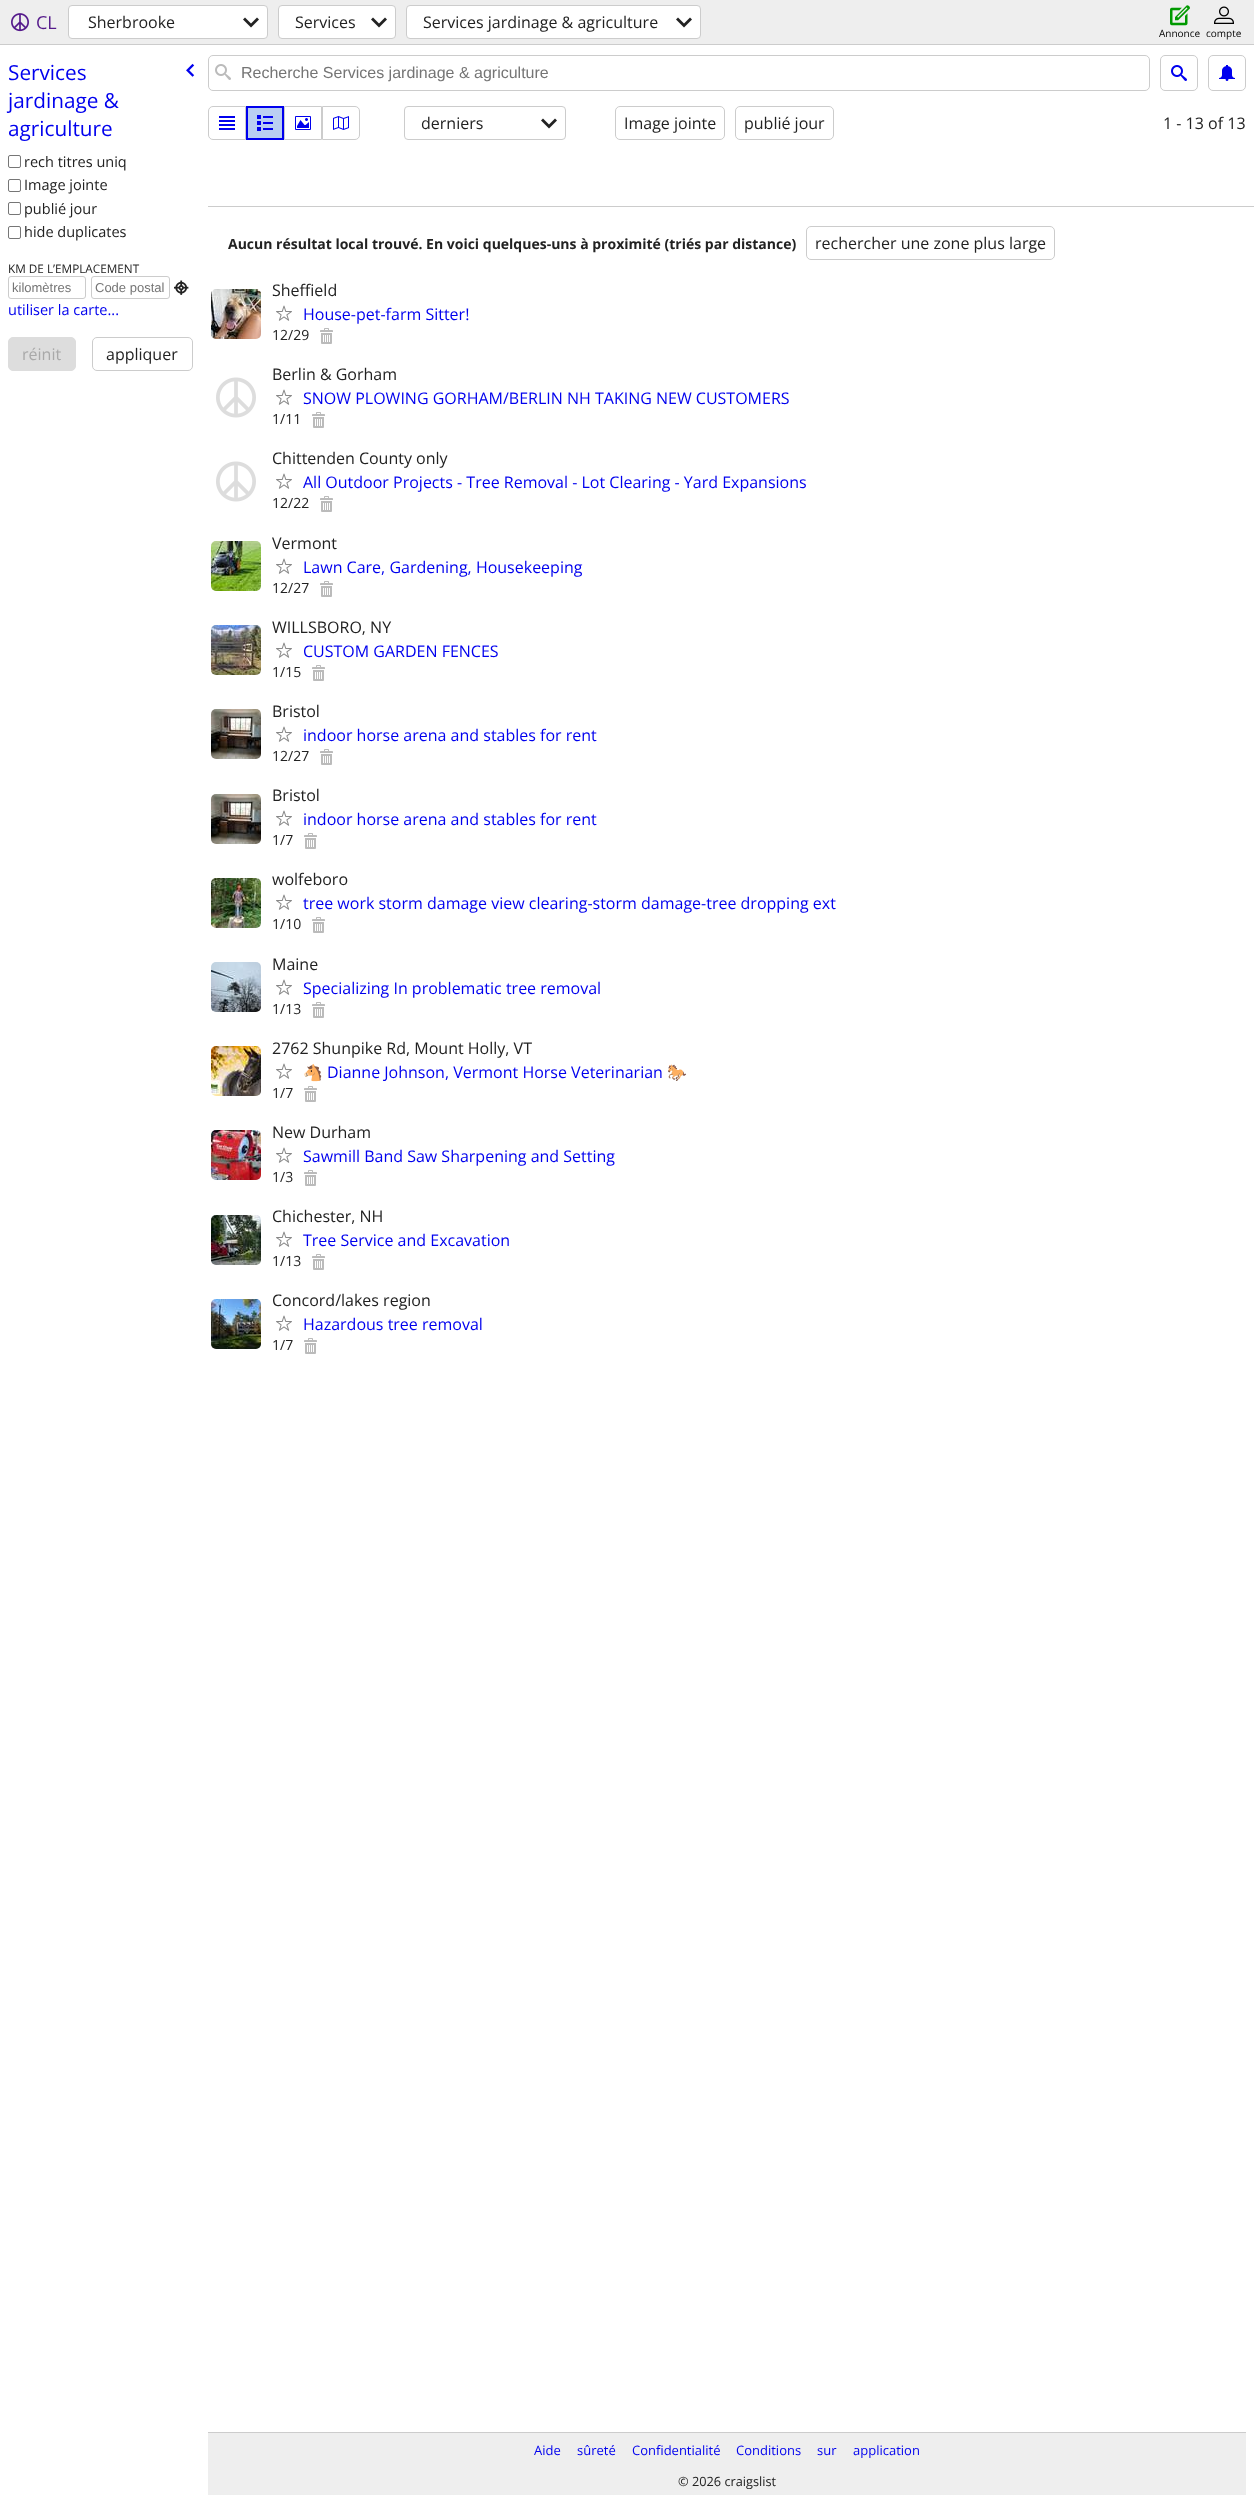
<svg xmlns="http://www.w3.org/2000/svg" width="1254" height="2495">
<style>
.a{font:18px Open Sans;fill:#551a8b}
.b{font:16px Open Sans;fill:#222}
.c{font:10px Open Sans;fill:#000}
.d{font:20.75px Open Sans;fill:#00e}
.e{font:14.5px Open Sans;fill:#222}
.f{font:11.75px Open Sans;fill:#222}
.g{font:13px Liberation Sans;fill:#757575}
.h{font:14.5px Open Sans;fill:#00e}
.i{font:16px Open Sans;fill:#a9a9a9}
.j{font:16px Liberation Sans;fill:#757575}
.k{font:bold 14px Open Sans;fill:#222}
.l{font:16px Open Sans;fill:#00e}
.m{font:14px Open Sans;fill:#222}
.n{font:16px Noto Color Emoji;fill:#00e}
.o{font:13px Open Sans;fill:#00e}
.p{font:12.75px Open Sans;fill:#222}
</style>
<rect width="100%" height="100%" fill="#fff"/>
<path fill="#eee" d="M0 0h1254v44H0z"/>
<path fill="#ccc" d="M0 44h1254v1H0z"/>
<image href="1.png" x="11" y="13" width="18" height="19"/>
<rect fill="#fff" stroke="#ccc" x="68.5" y="5.5" width="199" height="33" rx="3.5"/>
<image href="2.png" x="243" y="17" width="16" height="11"/>
<rect fill="#fff" stroke="#ccc" x="278.5" y="5.5" width="117" height="33" rx="3.5"/>
<image href="2.png" x="371" y="17" width="16" height="11"/>
<rect fill="#fff" stroke="#ccc" x="406.5" y="5.5" width="294" height="33" rx="3.5"/>
<image href="2.png" x="676" y="17" width="16" height="11"/>
<image href="3.png" x="1170" y="5" width="20" height="21"/>
<image href="4.png" x="1214" y="6" width="20" height="18"/>
<image href="5.png" x="186" y="63" width="9" height="14"/>
<rect fill="none" stroke="#767676" x="8.5" y="155.5" width="12" height="12" rx="1.5"/>
<rect fill="none" stroke="#767676" x="8.5" y="179.5" width="12" height="12" rx="1.5"/>
<rect fill="none" stroke="#767676" x="8.5" y="202.5" width="12" height="12" rx="1.5"/>
<rect fill="none" stroke="#767676" x="8.5" y="226.5" width="12" height="12" rx="1.5"/>
<rect fill="none" stroke="#ccc" x="8.5" y="276.5" width="77" height="22" rx="2.5"/>
<rect fill="none" stroke="#ccc" x="91.5" y="276.5" width="78" height="22" rx="2.5"/>
<image href="6.png" x="174" y="280" width="15" height="15"/>
<rect fill="#ddd" stroke="#ddd" x="8.5" y="337.5" width="67" height="33" rx="4.5"/>
<rect fill="none" stroke="#ccc" x="92.5" y="337.5" width="100" height="33" rx="4.5"/>
<rect fill="none" stroke="#ccc" x="208.5" y="55.5" width="941" height="35" rx="4.5"/>
<image href="7.png" x="215" y="64" width="16" height="16"/>
<rect fill="none" stroke="#ccc" x="1160.5" y="55.5" width="37" height="35" rx="4.5"/>
<image href="8.png" x="1171" y="65" width="16" height="16"/>
<rect fill="none" stroke="#ccc" x="1208.5" y="55.5" width="37" height="35" rx="4.5"/>
<image href="9.png" x="1219" y="65" width="16" height="16"/>
<path fill="none" stroke="#ccc" d="M213 106.5h32.5v33h-32.5c-2.5 0-4.5-2-4.5-4.5v-24c0-2.5 2-4.5 4.5-4.5z"/>
<image href="10.png" x="219" y="116" width="16" height="14"/>
<path fill="#bacff2" stroke="#00e" stroke-width="2" d="M247 107h36v32H247z"/>
<image href="11.png" x="257" y="115" width="16" height="16"/>
<path fill="none" stroke="#ccc" d="M284.5 106.5h37v33H284.5z"/>
<image href="12.png" x="295" y="116" width="16" height="14"/>
<path fill="none" stroke="#ccc" d="M322.5 106.5h32.5c2.5 0 4.5 2 4.5 4.5v24c0 2.5-2 4.5-4.5 4.5h-32.5z"/>
<image href="13.png" x="333" y="116" width="16" height="14"/>
<rect fill="none" stroke="#ccc" x="404.5" y="106.5" width="161" height="33" rx="3.5"/>
<image href="2.png" x="541" y="118" width="16" height="11"/>
<rect fill="none" stroke="#ccc" x="615.5" y="106.5" width="109" height="33" rx="4.5"/>
<rect fill="none" stroke="#ccc" x="735.5" y="106.5" width="98" height="33" rx="4.5"/>
<path fill="#ccc" d="M208 206h1046v1H208z"/>
<rect fill="none" stroke="#ccc" x="806.5" y="226.5" width="248" height="33" rx="4.5"/>
<image href="14.png" x="211" y="289" width="50" height="50"/>
<image href="15.png" x="276" y="305" width="16" height="16"/>
<image href="16.png" x="320" y="328" width="13" height="16"/>
<image href="17.png" x="216" y="377" width="40" height="41"/>
<image href="15.png" x="276" y="389" width="16" height="16"/>
<image href="16.png" x="312" y="412" width="13" height="16"/>
<image href="17.png" x="216" y="461" width="40" height="41"/>
<image href="15.png" x="276" y="473" width="16" height="16"/>
<image href="16.png" x="320" y="496" width="13" height="16"/>
<image href="18.png" x="211" y="541" width="50" height="50"/>
<image href="15.png" x="276" y="558" width="16" height="16"/>
<image href="16.png" x="320" y="581" width="13" height="16"/>
<image href="19.png" x="211" y="625" width="50" height="50"/>
<image href="15.png" x="276" y="642" width="16" height="16"/>
<image href="16.png" x="312" y="665" width="13" height="16"/>
<image href="20.png" x="211" y="709" width="50" height="50"/>
<image href="15.png" x="276" y="726" width="16" height="16"/>
<image href="16.png" x="320" y="749" width="13" height="16"/>
<image href="20.png" x="211" y="794" width="50" height="50"/>
<image href="15.png" x="276" y="810" width="16" height="16"/>
<image href="16.png" x="304" y="833" width="13" height="16"/>
<image href="21.png" x="211" y="878" width="50" height="50"/>
<image href="15.png" x="276" y="894" width="16" height="16"/>
<image href="16.png" x="312" y="917" width="13" height="16"/>
<image href="22.png" x="211" y="962" width="50" height="50"/>
<image href="15.png" x="276" y="979" width="16" height="16"/>
<image href="16.png" x="312" y="1002" width="13" height="16"/>
<image href="23.png" x="211" y="1046" width="50" height="50"/>
<image href="15.png" x="276" y="1063" width="16" height="16"/>
<image href="16.png" x="304" y="1086" width="13" height="16"/>
<image href="24.png" x="211" y="1130" width="50" height="50"/>
<image href="15.png" x="276" y="1147" width="16" height="16"/>
<image href="16.png" x="304" y="1170" width="13" height="16"/>
<image href="25.png" x="211" y="1215" width="50" height="50"/>
<image href="15.png" x="276" y="1231" width="16" height="16"/>
<image href="16.png" x="312" y="1254" width="13" height="16"/>
<image href="26.png" x="211" y="1299" width="50" height="50"/>
<image href="15.png" x="276" y="1315" width="16" height="16"/>
<image href="16.png" x="304" y="1338" width="13" height="16"/>
<path fill="#eee" d="M208 2433h1038v62H208z"/>
<path fill="#ccc" d="M208 2432h1038v1H208z"/>
<text class="a" x="36" y="29">CL</text>
<text class="b" x="88" y="28">Sherbrooke</text>
<text class="b" x="295" y="28">Services</text>
<text class="b" x="423" y="28">Services jardinage &amp; agriculture</text>
<text class="c" x="1159" y="37">Annonce</text>
<text class="c" x="1206" y="37">compte</text>
<text class="d" x="8" y="80">Services</text>
<text class="d" x="8" y="108">jardinage &amp;</text>
<text class="d" x="8" y="136">agriculture</text>
<text class="e" x="24" y="167">rech titres uniq</text>
<text class="e" x="24" y="190">Image jointe</text>
<text class="e" x="24" y="214">publié jour</text>
<text class="e" x="24" y="237">hide duplicates</text>
<text class="f" x="8" y="273">KM DE L’EMPLACEMENT</text>
<text class="g" x="12" y="292">kilomètres</text>
<text class="g" x="95" y="292">Code postal</text>
<text class="h" x="8" y="315">utiliser la carte...</text>
<text class="i" x="22" y="360">réinit</text>
<text class="b" x="106" y="360">appliquer</text>
<text class="j" x="241" y="78">Recherche Services jardinage &amp; agriculture</text>
<text class="b" x="421" y="129">derniers</text>
<text class="b" x="624" y="129">Image jointe</text>
<text class="b" x="744" y="129">publié jour</text>
<text class="b" x="1163" y="129">1 - 13 of 13</text>
<text class="k" x="228" y="249">Aucun résultat local trouvé. En voici quelques-uns à proximité (triés par distance)</text>
<text class="b" x="815" y="249">rechercher une zone plus large</text>
<text class="b" x="272" y="296">Sheffield</text>
<text class="l" x="303" y="320">House-pet-farm Sitter!</text>
<text class="m" x="272" y="340">12/29</text>
<text class="b" x="272" y="380">Berlin &amp; Gorham</text>
<text class="l" x="303" y="404">SNOW PLOWING GORHAM/BERLIN NH TAKING NEW CUSTOMERS</text>
<text class="m" x="272" y="424">1/11</text>
<text class="b" x="272" y="464">Chittenden County only</text>
<text class="l" x="303" y="488">All Outdoor Projects - Tree Removal - Lot Clearing - Yard Expansions</text>
<text class="m" x="272" y="508">12/22</text>
<text class="b" x="272" y="549">Vermont</text>
<text class="l" x="303" y="573">Lawn Care, Gardening, Housekeeping</text>
<text class="m" x="272" y="593">12/27</text>
<text class="b" x="272" y="633">WILLSBORO, NY</text>
<text class="l" x="303" y="657">CUSTOM GARDEN FENCES</text>
<text class="m" x="272" y="677">1/15</text>
<text class="b" x="272" y="717">Bristol</text>
<text class="l" x="303" y="741">indoor horse arena and stables for rent</text>
<text class="m" x="272" y="761">12/27</text>
<text class="b" x="272" y="801">Bristol</text>
<text class="l" x="303" y="825">indoor horse arena and stables for rent</text>
<text class="m" x="272" y="845">1/7</text>
<text class="b" x="272" y="885">wolfeboro</text>
<text class="l" x="303" y="909">tree work storm damage view clearing-storm damage-tree dropping ext</text>
<text class="m" x="272" y="929">1/10</text>
<text class="b" x="272" y="970">Maine</text>
<text class="l" x="303" y="994">Specializing In problematic tree removal</text>
<text class="m" x="272" y="1014">1/13</text>
<text class="b" x="272" y="1054">2762 Shunpike Rd, Mount Holly, VT</text>
<text class="n" x="303" y="1078">🐴</text>
<text class="l" x="327" y="1078">Dianne Johnson, Vermont Horse Veterinarian</text>
<text class="n" x="667" y="1078">🐎</text>
<text class="m" x="272" y="1098">1/7</text>
<text class="b" x="272" y="1138">New Durham</text>
<text class="l" x="303" y="1162">Sawmill Band Saw Sharpening and Setting</text>
<text class="m" x="272" y="1182">1/3</text>
<text class="b" x="272" y="1222">Chichester, NH</text>
<text class="l" x="303" y="1246">Tree Service and Excavation</text>
<text class="m" x="272" y="1266">1/13</text>
<text class="b" x="272" y="1306">Concord/lakes region</text>
<text class="l" x="303" y="1330">Hazardous tree removal</text>
<text class="m" x="272" y="1350">1/7</text>
<text class="o" x="534" y="2455">Aide</text>
<text class="o" x="577" y="2455">sûreté</text>
<text class="o" x="632" y="2455">Confidentialité</text>
<text class="o" x="736" y="2455">Conditions</text>
<text class="o" x="817" y="2455">sur</text>
<text class="o" x="853" y="2455">application</text>
<text class="p" x="678" y="2486">© 2026 craigslist</text>
</svg>
